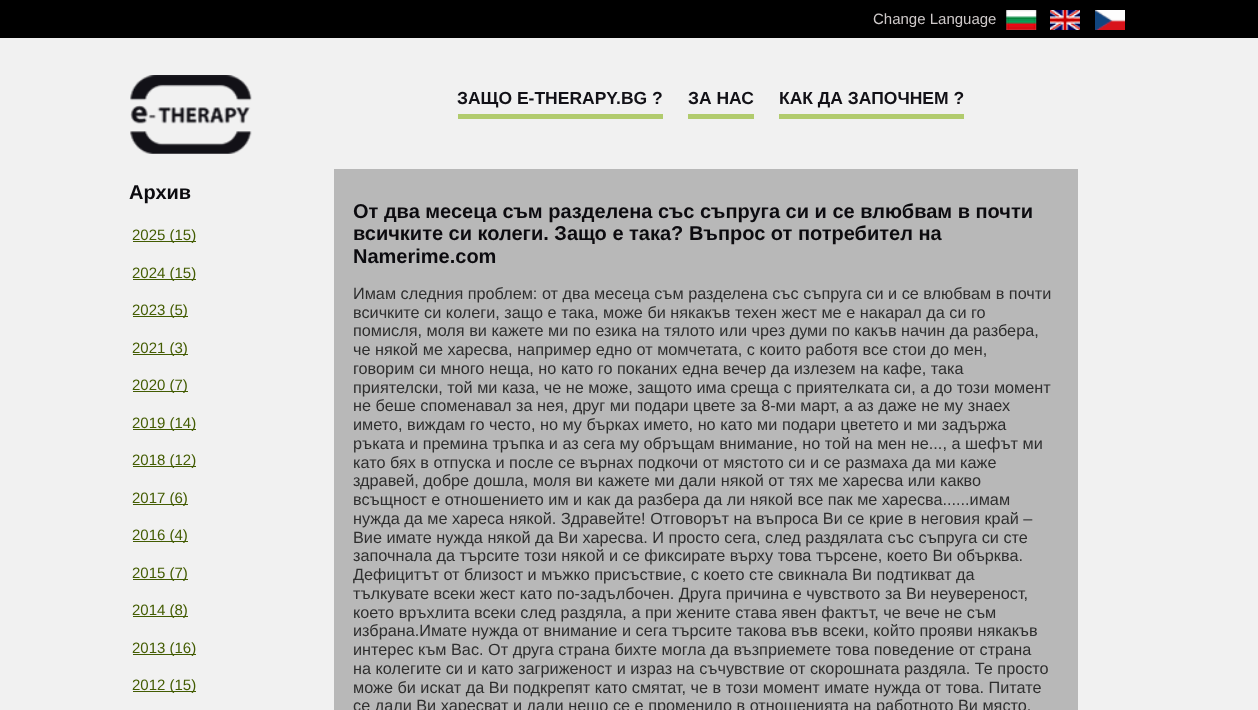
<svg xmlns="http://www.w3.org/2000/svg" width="1258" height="710">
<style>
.a{font:15px Liberation Sans;fill:#cec9c9}
.b{font:bold 17.5px Liberation Sans;fill:#121117}
.c{font:bold 20px Liberation Sans;fill:#0c0b0f}
.d{font:15px Liberation Sans;fill:#435c02}
.e{font:16.25px Liberation Sans;fill:#2e2e2e}
</style>
<rect width="100%" height="100%" fill="#f1f1f1"/>
<path fill="#000" d="M0 0h1258v38H0z"/>
<image href="1.png" x="1006" y="10" width="31" height="20"/>
<image href="2.png" x="1050" y="10" width="30" height="20"/>
<image href="3.png" x="1095" y="10" width="30" height="20"/>
<image href="4.png" x="130" y="75" width="122" height="79"/>
<path fill="#b1cb6d" d="M458 114h205v5H458z"/>
<path fill="#b1cb6d" d="M688 114h66v5H688z"/>
<path fill="#b1cb6d" d="M779 114h185v5H779z"/>
<path fill="#435c02" d="M133 241h63v1H133z"/>
<path fill="#435c02" d="M133 279h63v1H133z"/>
<path fill="#435c02" d="M133 316h55v1H133z"/>
<path fill="#435c02" d="M133 354h55v1H133z"/>
<path fill="#435c02" d="M133 391h55v1H133z"/>
<path fill="#435c02" d="M133 429h63v1H133z"/>
<path fill="#435c02" d="M133 466h63v1H133z"/>
<path fill="#435c02" d="M133 504h55v1H133z"/>
<path fill="#435c02" d="M133 541h55v1H133z"/>
<path fill="#435c02" d="M133 579h55v1H133z"/>
<path fill="#435c02" d="M133 616h55v1H133z"/>
<path fill="#435c02" d="M133 654h63v1H133z"/>
<path fill="#435c02" d="M133 691h63v1H133z"/>
<path fill="#b8b8b8" d="M334 169h744v541H334z"/>
<text class="a" x="873" y="24">Change Language</text>
<text class="b" x="457" y="104">ЗАЩО E-THERAPY.BG ?</text>
<text class="b" x="688" y="104">ЗА НАС</text>
<text class="b" x="779" y="104">КАК ДА ЗАПОЧНЕМ ?</text>
<text class="c" x="129" y="199">Архив</text>
<text class="d" x="132" y="240">2025 (15)</text>
<text class="d" x="132" y="278">2024 (15)</text>
<text class="d" x="132" y="315">2023 (5)</text>
<text class="d" x="132" y="353">2021 (3)</text>
<text class="d" x="132" y="390">2020 (7)</text>
<text class="d" x="132" y="428">2019 (14)</text>
<text class="d" x="132" y="465">2018 (12)</text>
<text class="d" x="132" y="503">2017 (6)</text>
<text class="d" x="132" y="540">2016 (4)</text>
<text class="d" x="132" y="578">2015 (7)</text>
<text class="d" x="132" y="615">2014 (8)</text>
<text class="d" x="132" y="653">2013 (16)</text>
<text class="d" x="132" y="690">2012 (15)</text>
<text class="c" x="353" y="218">От два месеца съм разделена със съпруга си и се влюбвам в почти</text>
<text class="c" x="353" y="240">всичките си колеги. Защо е така? Въпрос от потребител на</text>
<text class="c" x="353" y="263">Namerime.com</text>
<text class="e" x="353" y="299">Имам следния проблем: от два месеца съм разделена със съпруга си и се влюбвам в почти</text>
<text class="e" x="353" y="318">всичките си колеги, защо е така, може би някакъв техен жест ме е накарал да си го</text>
<text class="e" x="353" y="336">помисля, моля ви кажете ми по езика на тялото или чрез думи по какъв начин да разбера,</text>
<text class="e" x="353" y="355">че някой ме харесва, например едно от момчетата, с които работя все стои до мен,</text>
<text class="e" x="353" y="374">говорим си много неща, но като го поканих една вечер да излезем на кафе, така</text>
<text class="e" x="353" y="393">приятелски, той ми каза, че не може, защото има среща с приятелката си, а до този момент</text>
<text class="e" x="353" y="411">не беше споменавал за нея, друг ми подари цвете за 8-ми март, а аз даже не му знаех</text>
<text class="e" x="353" y="430">името, виждам го често, но му бърках името, но като ми подари цветето и ми задържа</text>
<text class="e" x="353" y="449">ръката и премина тръпка и аз сега му обръщам внимание, но той на мен не..., а шефът ми</text>
<text class="e" x="353" y="468">като бях в отпуска и после се върнах подкочи от мястото си и се размаха да ми каже</text>
<text class="e" x="353" y="486">здравей, добре дошла, моля ви кажете ми дали някой от тях ме харесва или какво</text>
<text class="e" x="353" y="505">всъщност е отношението им и как да разбера да ли някой все пак ме харесва......имам</text>
<text class="e" x="353" y="524">нужда да ме хареса някой. Здравейте! Отговорът на въпроса Ви се крие в неговия край –</text>
<text class="e" x="353" y="543">Вие имате нужда някой да Ви харесва. И просто сега, след раздялата със съпруга си сте</text>
<text class="e" x="353" y="561">започнала да търсите този някой и се фиксирате върху това търсене, което Ви обърква.</text>
<text class="e" x="353" y="580">Дефицитът от близост и мъжко присъствие, с което сте свикнала Ви подтикват да</text>
<text class="e" x="353" y="599">тълкувате всеки жест като по-задълбочен. Друга причина е чувството за Ви неувереност,</text>
<text class="e" x="353" y="618">което връхлита всеки след раздяла, а при жените става явен фактът, че вече не съм</text>
<text class="e" x="353" y="636">избрана.Имате нужда от внимание и сега търсите такова във всеки, който прояви някакъв</text>
<text class="e" x="353" y="655">интерес към Вас. От друга страна бихте могла да възприемете това поведение от страна</text>
<text class="e" x="353" y="674">на колегите си и като загриженост и израз на съчувствие от скорошната раздяла. Те просто</text>
<text class="e" x="353" y="693">може би искат да Ви подкрепят като смятат, че в този момент имате нужда от това. Питате</text>
<text class="e" x="353" y="711">се дали Ви харесват и дали нещо се е променило в отношенията на работното Ви място.</text>
</svg>
